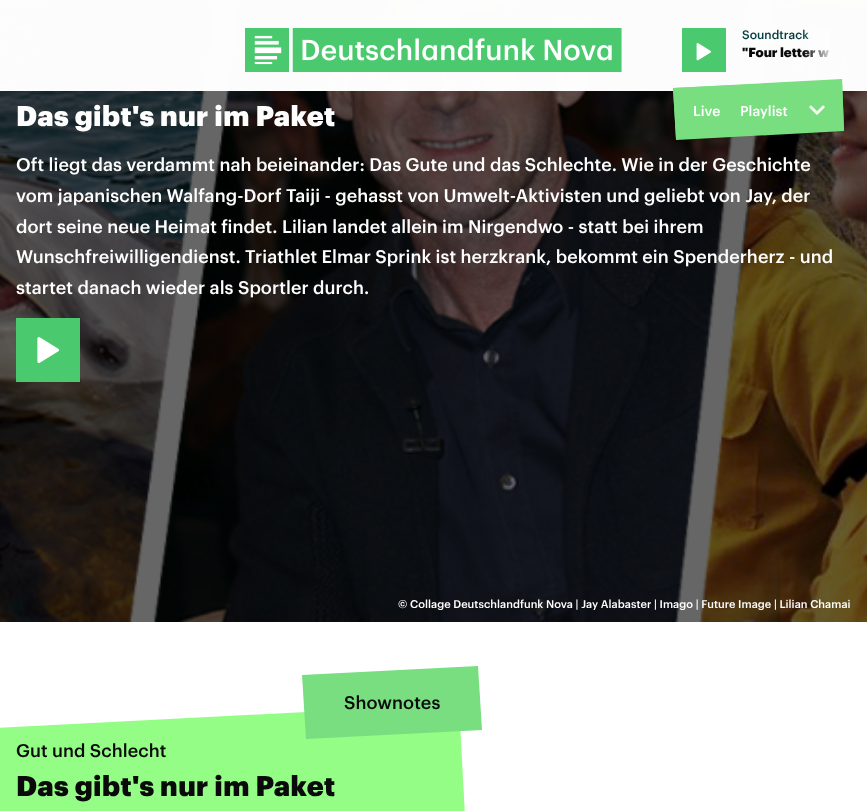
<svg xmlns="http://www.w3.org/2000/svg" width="867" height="811">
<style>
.a{font:500 12px Graphik;fill:#043e42}
.b{font:800 13px Graphik;fill:#0a0a0a}
.c{font:500 14px Graphik;fill:#fefefe}
.d{font:800 28px Graphik;letter-spacing:0.4px;fill:#fefefe}
.e{font:500 18px Graphik;fill:#fefefe}
.f{font:500 11px Graphik;fill:#fefefe}
.g{font:500 18px Graphik;fill:#0a0a0a}
.h{font:800 28px Graphik;letter-spacing:0.4px;fill:#0a0a0a}
</style>
<defs>
<linearGradient id="g1" gradientUnits="userSpaceOnUse" x1="803" y1="50" x2="835" y2="50"><stop offset="0" stop-color="#fefefe" stop-opacity="0"/><stop offset="1" stop-color="#fefefe"/></linearGradient>
</defs>
<rect width="100%" height="100%" fill="#fff"/>
<image href="4.png" x="0" y="0" width="867" height="622"/>
<path fill="#fffffffc" d="M0 0h867v91H0z"/>
<image href="1.png" x="245" y="28" width="377" height="44"/>
<path fill="#4ac96f" d="M682 28h44v44H682z"/>
<image href="2.png" x="696" y="43" width="16" height="18"/>
<path fill="#78de7f" d="M673 88l169-9l2 52l-168 9z"/>
<path fill="#78de7f" d="M673 88l169-8l2 49l-168 9z"/>
<image href="3.png" x="809" y="105" width="16" height="10"/>
<path fill="#4ac96f" d="M16 318h64v64H16z"/>
<image href="5.png" x="37" y="337" width="23" height="26"/>
<path fill="#94fd86" d="M-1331 797l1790-93l8 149l-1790 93z"/>
<path fill="#78de7f" d="M302 675l176-9l4 64l-176 9z"/>
<text class="a" x="742" y="39">Soundtrack</text>
<text class="b" x="742" y="57">"Four letter w</text>
<path fill="url(#g1)" d="M804 30h26v28H804z"/>
<text class="c" x="693" y="116">Live</text>
<text class="c" x="740" y="116">Playlist</text>
<text class="d" x="16" y="126">Das gibt's nur im Paket</text>
<text class="e" x="16" y="171">Oft liegt das verdammt nah beieinander: Das Gute und das Schlechte. Wie in der Geschichte</text>
<text class="e" x="16" y="202">vom japanischen Walfang-Dorf Taiji - gehasst von Umwelt-Aktivisten und geliebt von Jay, der</text>
<text class="e" x="16" y="233">dort seine neue Heimat findet. Lilian landet allein im Nirgendwo - statt bei ihrem</text>
<text class="e" x="16" y="263">Wunschfreiwilligendienst. Triathlet Elmar Sprink ist herzkrank, bekommt ein Spenderherz - und</text>
<text class="e" x="16" y="294">startet danach wieder als Sportler durch.</text>
<text class="f" x="398" y="608">© Collage Deutschlandfunk Nova | Jay Alabaster | Imago | Future Image | Lilian Chamai</text>
<text class="g" x="344" y="709">Shownotes</text>
<text class="g" x="16" y="757">Gut und Schlecht</text>
<text class="h" x="16" y="796">Das gibt's nur im Paket</text>
</svg>
